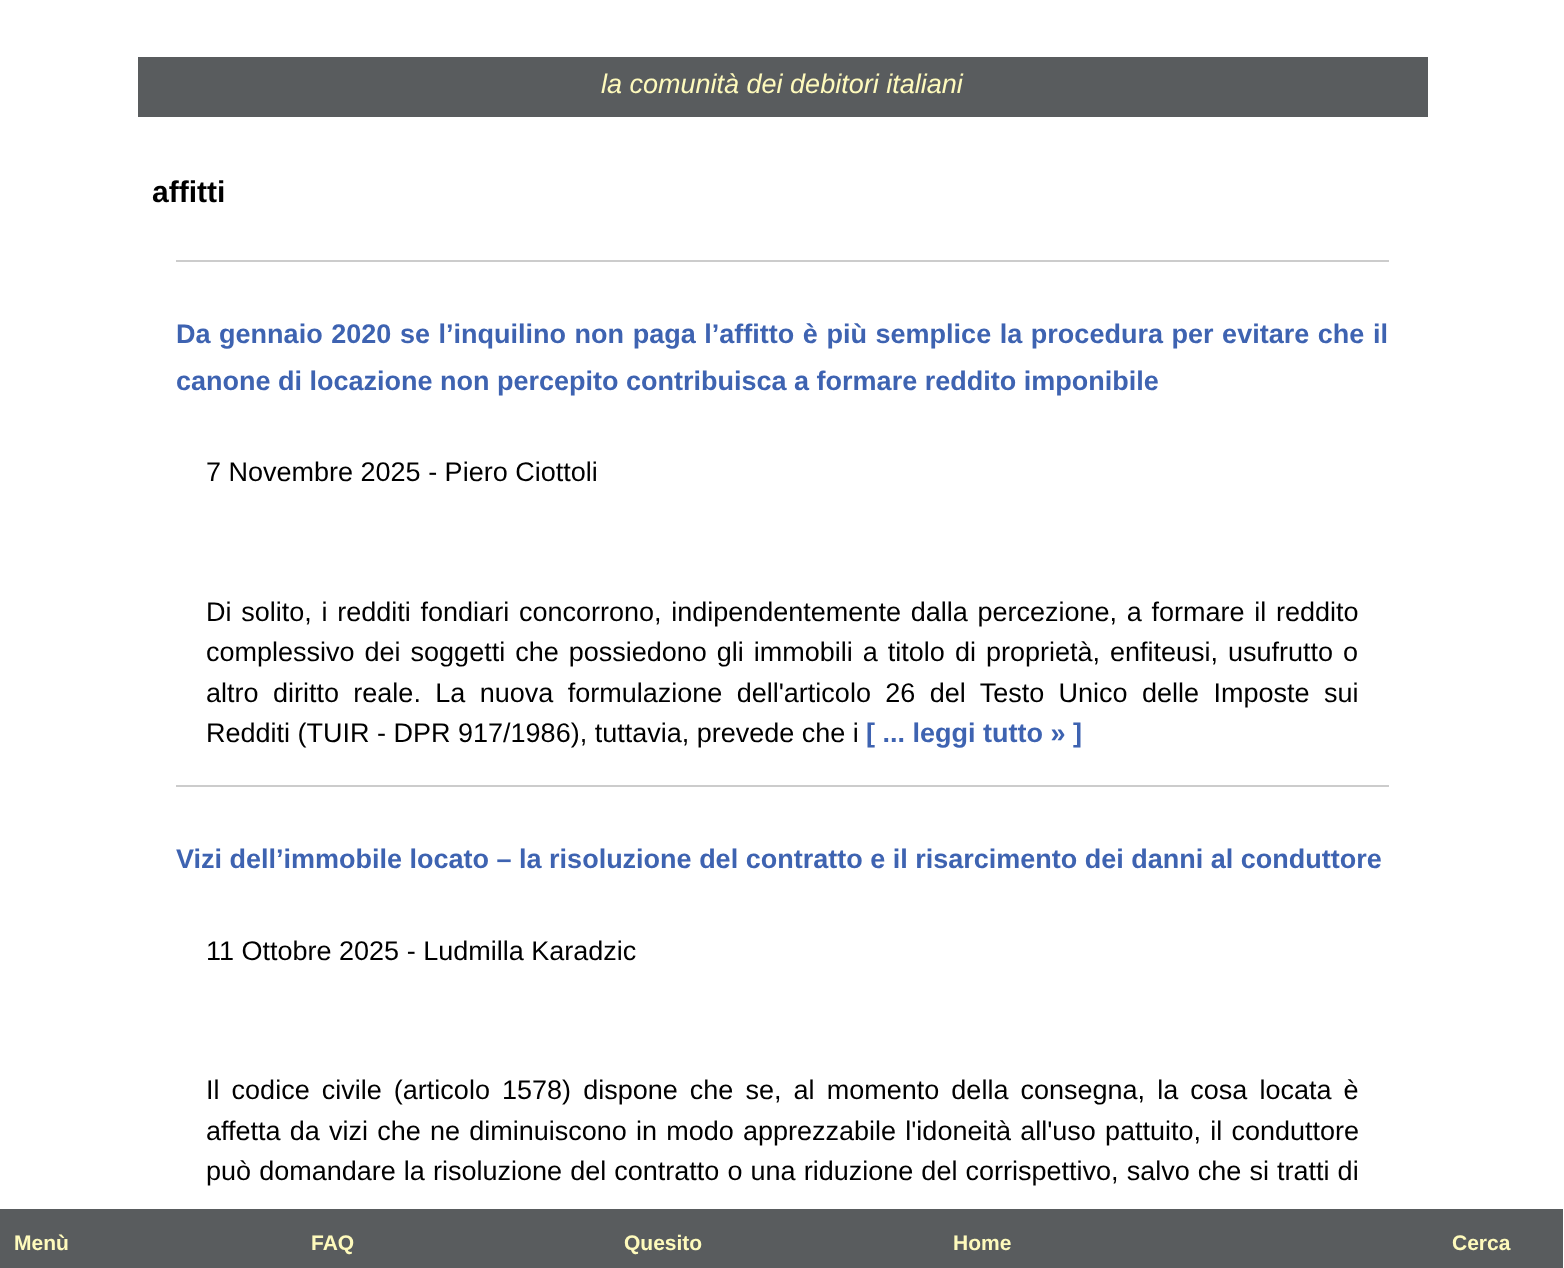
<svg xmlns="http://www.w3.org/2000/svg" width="1564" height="1268">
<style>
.a{font:italic 27px Liberation Sans;fill:#fefabc}
.b{font:bold 21px Liberation Sans;fill:#fefabc}
.c{font:bold 30px Liberation Sans;fill:#000}
.d{font:bold 27px Liberation Sans;fill:#3e63b1}
.e{font:27px Liberation Sans;fill:#000}
</style>
<rect width="100%" height="100%" fill="#fff"/>
<path fill="#595c5e" d="M138 57h1290v60H138z"/>
<path fill="#595c5e" d="M0 1209h1563v59H0z"/>
<path fill="#ccc" d="M176 260h1213v2H176z"/>
<path fill="#ccc" d="M176 785h1213v2H176z"/>
<text class="a" x="601" y="93">la comunità dei debitori italiani</text>
<text class="b" x="14" y="1250">Menù</text>
<text class="b" x="311" y="1250">FAQ</text>
<text class="b" x="624" y="1250">Quesito</text>
<text class="b" x="953" y="1250">Home</text>
<text class="b" x="1452" y="1250">Cerca</text>
<text class="c" x="152" y="202">affitti</text>
<text class="d" x="176" y="343" word-spacing="1.1">Da gennaio 2020 se l’inquilino non paga l’affitto è più semplice la procedura per evitare che il</text>
<text class="d" x="176" y="390">canone di locazione non percepito contribuisca a formare reddito imponibile</text>
<text class="e" x="206" y="481">7 Novembre 2025 - Piero Ciottoli</text>
<text class="e" x="206" y="621" word-spacing="2.25">Di solito, i redditi fondiari concorrono, indipendentemente dalla percezione, a formare il reddito</text>
<text class="e" x="206" y="661" word-spacing="2.5">complessivo dei soggetti che possiedono gli immobili a titolo di proprietà, enfiteusi, usufrutto o</text>
<text class="e" x="206" y="702" word-spacing="6.9">altro diritto reale. La nuova formulazione dell'articolo 26 del Testo Unico delle Imposte sui</text>
<text class="e" x="206" y="742">Redditi (TUIR - DPR 917/1986), tuttavia, prevede che i</text>
<text class="d" x="866" y="742">[ ... leggi tutto » ]</text>
<text class="d" x="176" y="868">Vizi dell’immobile locato – la risoluzione del contratto e il risarcimento dei danni al conduttore</text>
<text class="e" x="206" y="960">11 Ottobre 2025 - Ludmilla Karadzic</text>
<text class="e" x="206" y="1099" word-spacing="4.6">Il codice civile (articolo 1578) dispone che se, al momento della consegna, la cosa locata è</text>
<text class="e" x="206" y="1140" word-spacing="1.7">affetta da vizi che ne diminuiscono in modo apprezzabile l'idoneità all'uso pattuito, il conduttore</text>
<text class="e" x="206" y="1180" word-spacing="0.6">può domandare la risoluzione del contratto o una riduzione del corrispettivo, salvo che si tratti di</text>
</svg>
